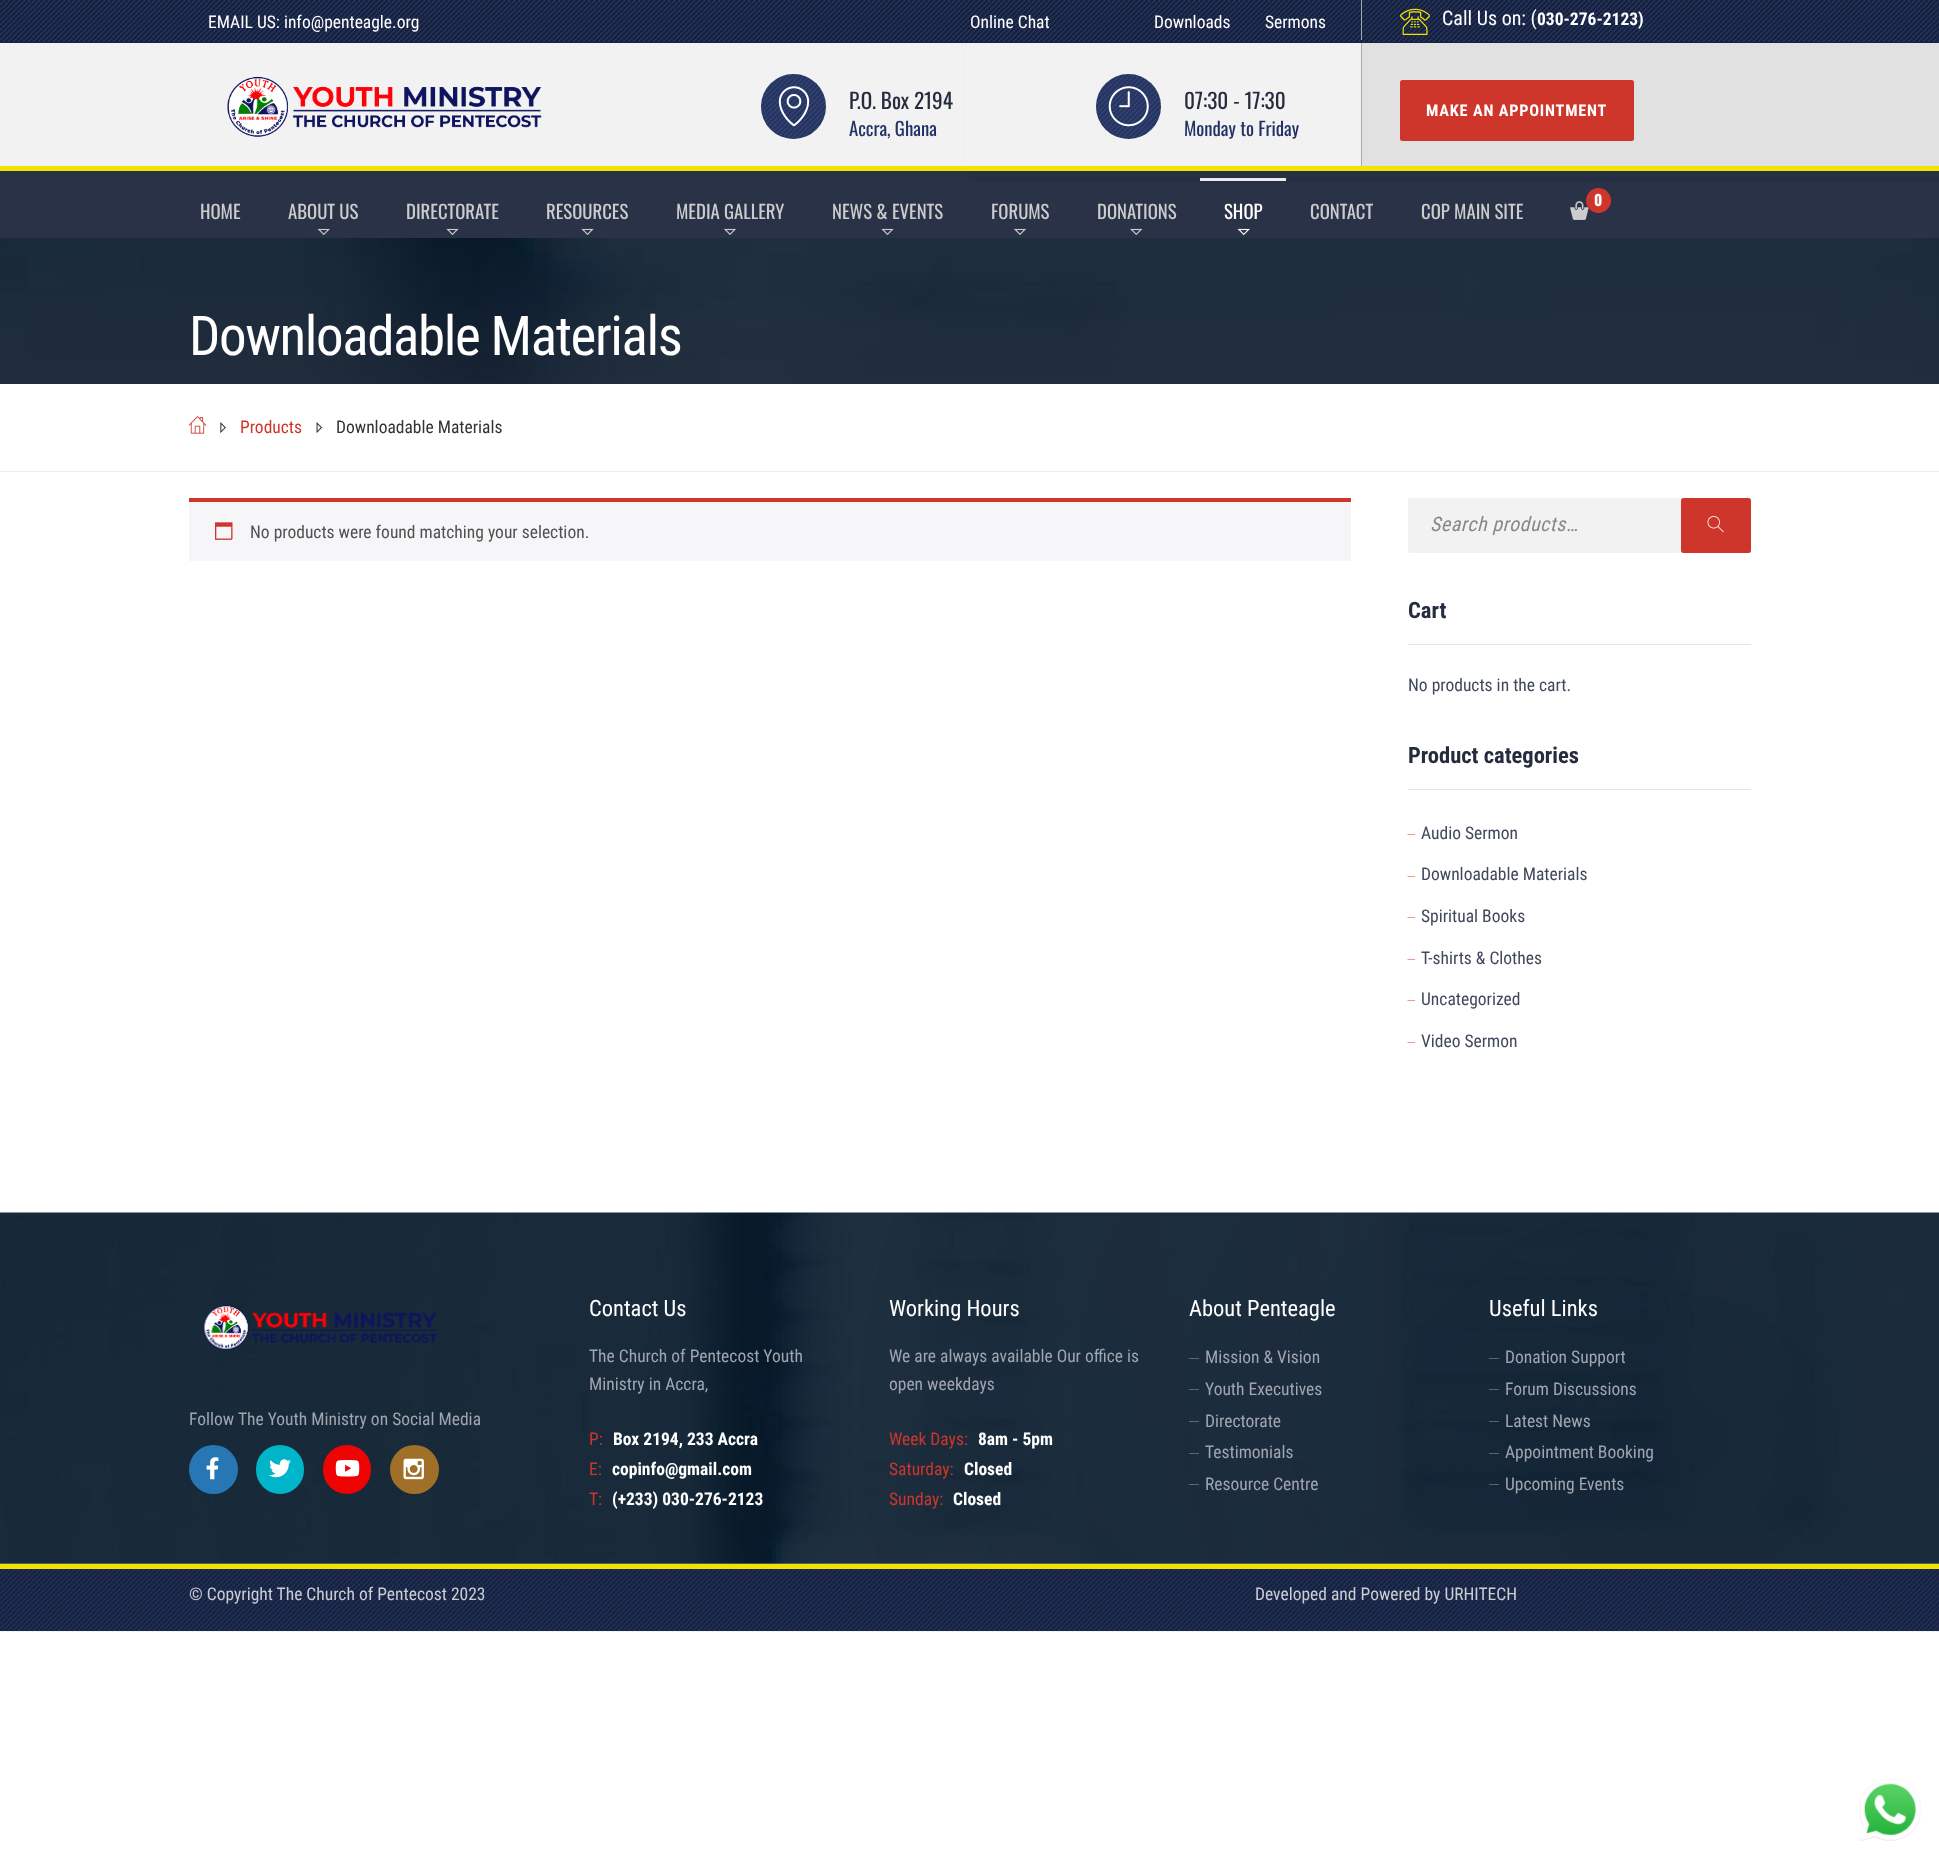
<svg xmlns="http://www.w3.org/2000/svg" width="1939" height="1859">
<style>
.a{font:17.5px Roboto Condensed;fill:#fff}
.b{font:20px Roboto Condensed;fill:#fff}
.c{font:bold 17.5px Roboto Condensed;fill:#fff}
.d{font:21.25px Oswald;fill:#252c3e}
.e{font:18.75px Oswald;fill:#213266}
.f{font:bold 16.25px Roboto Condensed;letter-spacing:0.8px;fill:#fff}
.g{font:bold 15px Oswald;fill:#fff}
.h{font:18.75px Oswald;fill:#ccc}
.i{font:18.75px Oswald;fill:#fff}
.j{font:55px Roboto Condensed;letter-spacing:-1.4px;fill:#fff}
.k{font:17.5px Roboto Condensed;fill:#ce362c}
.l{font:17.5px Roboto Condensed;fill:#333}
.m{font:17.5px Roboto Condensed;fill:#515151}
.n{font:italic 20px Roboto Condensed;letter-spacing:0.5px;fill:#888}
.o{font:bold 22.5px Roboto Condensed;fill:#252c3e}
.p{font:17.5px Roboto Condensed;fill:#41485b}
.q{font:17.5px Roboto Condensed;fill:#a1a5b0}
.r{font:22.5px Roboto Condensed;fill:#fff}
.s{font:17.5px Roboto Condensed;fill:#cacdd4}
</style>
<rect width="100%" height="100%" fill="#fff"/>
<image href="1.png" x="0" y="43" width="1939" height="140"/>
<path fill="#101e44" d="M0 0h1939v43H0z"/>
<image href="2.png" x="0" y="0" width="1939" height="43"/>
<path fill="#a7a9af" d="M1361 0h1v40H1361z"/>
<image href="3.png" x="1400" y="8" width="30" height="27"/>
<path fill="#f2f2f2" d="M968 43h393v123H968z"/>
<image href="4.png" x="227" y="76" width="315" height="61"/>
<circle fill="#213266" cx="793.5" cy="106.5" r="32.5"/>
<image href="5.png" x="761" y="74" width="65" height="65"/>
<image href="6.png" x="778" y="86" width="32" height="41"/>
<circle fill="#213266" cx="1128.5" cy="106.5" r="32.5"/>
<image href="7.png" x="1096" y="74" width="65" height="65"/>
<image href="8.png" x="1108" y="86" width="41" height="41"/>
<path fill="#a7a9af" d="M1361 43h1v123H1361z"/>
<rect fill="#ce362c" x="1400" y="80" width="234" height="61" rx="2.5"/>
<path fill="#121c33e6" d="M0 171h1939v67H0z"/>
<path fill="#f1e200" d="M0 166h1939v5H0z"/>
<image href="9.png" x="1570" y="201" width="19" height="19"/>
<circle fill="#ce362c" cx="1598.5" cy="200.5" r="12.5"/>
<image href="10.png" x="317" y="228" width="13" height="7"/>
<image href="11.png" x="446" y="228" width="13" height="7"/>
<image href="11.png" x="581" y="228" width="13" height="7"/>
<image href="12.png" x="724" y="228" width="12" height="7"/>
<image href="11.png" x="881" y="228" width="13" height="7"/>
<image href="12.png" x="1014" y="228" width="12" height="7"/>
<image href="13.png" x="1130" y="228" width="13" height="7"/>
<path fill="#ebebeb" d="M1200 178h86v3H1200z"/>
<image href="14.png" x="1237" y="228" width="13" height="8"/>
<image href="15.png" x="0" y="238" width="1939" height="146"/>
<path fill="#eee" d="M0 471h1939v1H0z"/>
<image href="16.png" x="188" y="416" width="19" height="18"/>
<image href="17.png" x="220" y="422" width="6" height="11"/>
<image href="18.png" x="316" y="422" width="7" height="11"/>
<path fill="#f6f5f8" d="M189 502h1162v59H189z"/>
<path fill="#ce362c" d="M189 498h1162v4H189z"/>
<image href="19.png" x="215" y="522" width="18" height="18"/>
<rect fill="#f2f2f2" x="1408" y="498" width="273" height="55" rx="2.5"/>
<rect fill="#ce362c" x="1681" y="498" width="70" height="55" rx="2.5"/>
<image href="20.png" x="1707" y="516" width="17" height="17"/>
<path fill="#e5e5e5" d="M1408 644h343v1H1408z"/>
<path fill="#e5e5e5" d="M1408 789h343v1H1408z"/>
<path fill="#ce362c" d="M1407.5 834h7.5v.5h-7.5z"/>
<path fill="#ce362c" d="M1407.5 876.5h7.5v.5h-7.5z"/>
<path fill="#ce362c" d="M1407.5 917.5h7.5v.5h-7.5z"/>
<path fill="#ce362c" d="M1407.5 959h7.5v.5h-7.5z"/>
<path fill="#ce362c" d="M1407.5 1000h7.5v.5h-7.5z"/>
<path fill="#ce362c" d="M1407.5 1042.5h7.5v.5h-7.5z"/>
<image href="21.png" x="0" y="1212" width="1939" height="352"/>
<image href="22.png" x="203" y="1305" width="234" height="45"/>
<circle fill="#2777b5" cx="213.5" cy="1469.5" r="24.5"/>
<image href="23.png" x="206" y="1457" width="13" height="23"/>
<rect fill="#00b5c9" x="256" y="1445" width="48" height="49" rx="24"/>
<image href="24.png" x="269" y="1459" width="22" height="19"/>
<rect fill="#ef0404" x="323" y="1445" width="48" height="49" rx="24"/>
<image href="25.png" x="335" y="1460" width="25" height="17"/>
<circle fill="#a07028" cx="414.5" cy="1469.5" r="24.5"/>
<image href="26.png" x="403" y="1458" width="21" height="22"/>
<path fill="#a1a5b0" d="M1189 1358h10v.5h-10z"/>
<path fill="#a1a5b0" d="M1189 1389h10v.5h-10z"/>
<path fill="#a1a5b0" d="M1189 1421.5h10v.5h-10z"/>
<path fill="#a1a5b0" d="M1189 1453h10v.5h-10z"/>
<path fill="#a1a5b0" d="M1189 1484h10v.5h-10z"/>
<path fill="#a1a5b0" d="M1489 1358h10v.5h-10z"/>
<path fill="#a1a5b0" d="M1489 1389h10v.5h-10z"/>
<path fill="#a1a5b0" d="M1489 1421.5h10v.5h-10z"/>
<path fill="#a1a5b0" d="M1489 1453h10v.5h-10z"/>
<path fill="#a1a5b0" d="M1489 1484h10v.5h-10z"/>
<path fill="#101e44" d="M0 1569h1939v62H0z"/>
<image href="27.png" x="0" y="1563" width="1939" height="69"/>
<path fill="#f1e200" d="M0 1564h1939v5H0z"/>
<image href="28.png" x="1859" y="1779" width="62" height="62"/>
<text class="a" x="208" y="28">EMAIL US: info@penteagle.org</text>
<text class="a" x="970" y="28">Online Chat</text>
<text class="a" x="1154" y="28">Downloads</text>
<text class="a" x="1265" y="28">Sermons</text>
<text class="b" x="1442" y="25">Call Us on: (</text>
<text class="c" x="1537" y="25">030-276-2123)</text>
<text class="d" x="849" y="109">P.O. Box 2194</text>
<text class="e" x="849" y="136">Accra, Ghana</text>
<text class="d" x="1184" y="109">07:30 - 17:30</text>
<text class="e" x="1184" y="136">Monday to Friday</text>
<text class="f" x="1426" y="116">MAKE AN APPOINTMENT</text>
<text class="g" x="1594" y="206">0</text>
<text class="h" x="200" y="219">HOME</text>
<text class="h" x="288" y="219">ABOUT US</text>
<text class="h" x="406" y="219">DIRECTORATE</text>
<text class="h" x="546" y="219">RESOURCES</text>
<text class="h" x="676" y="219">MEDIA GALLERY</text>
<text class="h" x="832" y="219">NEWS &amp; EVENTS</text>
<text class="h" x="991" y="219">FORUMS</text>
<text class="h" x="1097" y="219">DONATIONS</text>
<text class="i" x="1224" y="219">SHOP</text>
<text class="h" x="1310" y="219">CONTACT</text>
<text class="h" x="1421" y="219">COP MAIN SITE</text>
<text class="j" x="189" y="355">Downloadable Materials</text>
<text class="k" x="240" y="433">Products</text>
<text class="l" x="336" y="433">Downloadable Materials</text>
<text class="m" x="250" y="538">No products were found matching your selection.</text>
<text class="n" x="1430" y="531">Search products…</text>
<text class="o" x="1408" y="618">Cart</text>
<text class="p" x="1408" y="691">No products in the cart.</text>
<text class="o" x="1408" y="763">Product categories</text>
<text class="p" x="1421" y="839">Audio Sermon</text>
<text class="p" x="1421" y="880">Downloadable Materials</text>
<text class="p" x="1421" y="922">Spiritual Books</text>
<text class="p" x="1421" y="964">T-shirts &amp; Clothes</text>
<text class="p" x="1421" y="1005">Uncategorized</text>
<text class="p" x="1421" y="1047">Video Sermon</text>
<text class="q" x="189" y="1425">Follow The Youth Ministry on Social Media</text>
<text class="r" x="589" y="1316">Contact Us</text>
<text class="q" x="589" y="1362">The Church of Pentecost Youth</text>
<text class="q" x="589" y="1390">Ministry in Accra,</text>
<text class="k" x="589" y="1445">P:</text>
<text class="c" x="613" y="1445">Box 2194, 233 Accra</text>
<text class="k" x="589" y="1475">E:</text>
<text class="c" x="612" y="1475">copinfo@gmail.com</text>
<text class="k" x="589" y="1505">T:</text>
<text class="c" x="612" y="1505">(+233) 030-276-2123</text>
<text class="r" x="889" y="1316">Working Hours</text>
<text class="q" x="889" y="1362">We are always available Our office is</text>
<text class="q" x="889" y="1390">open weekdays</text>
<text class="k" x="889" y="1445">Week Days:</text>
<text class="c" x="978" y="1445">8am - 5pm</text>
<text class="k" x="889" y="1475">Saturday:</text>
<text class="c" x="964" y="1475">Closed</text>
<text class="k" x="889" y="1505">Sunday:</text>
<text class="c" x="953" y="1505">Closed</text>
<text class="r" x="1189" y="1316">About Penteagle</text>
<text class="q" x="1205" y="1363">Mission &amp; Vision</text>
<text class="q" x="1205" y="1395">Youth Executives</text>
<text class="q" x="1205" y="1427">Directorate</text>
<text class="q" x="1205" y="1458">Testimonials</text>
<text class="q" x="1205" y="1490">Resource Centre</text>
<text class="r" x="1489" y="1316">Useful Links</text>
<text class="q" x="1505" y="1363">Donation Support</text>
<text class="q" x="1505" y="1395">Forum Discussions</text>
<text class="q" x="1505" y="1427">Latest News</text>
<text class="q" x="1505" y="1458">Appointment Booking</text>
<text class="q" x="1505" y="1490">Upcoming Events</text>
<text class="s" x="189" y="1600">© Copyright The Church of Pentecost 2023</text>
<text class="s" x="1255" y="1600">Developed and Powered by URHITECH</text>
</svg>
